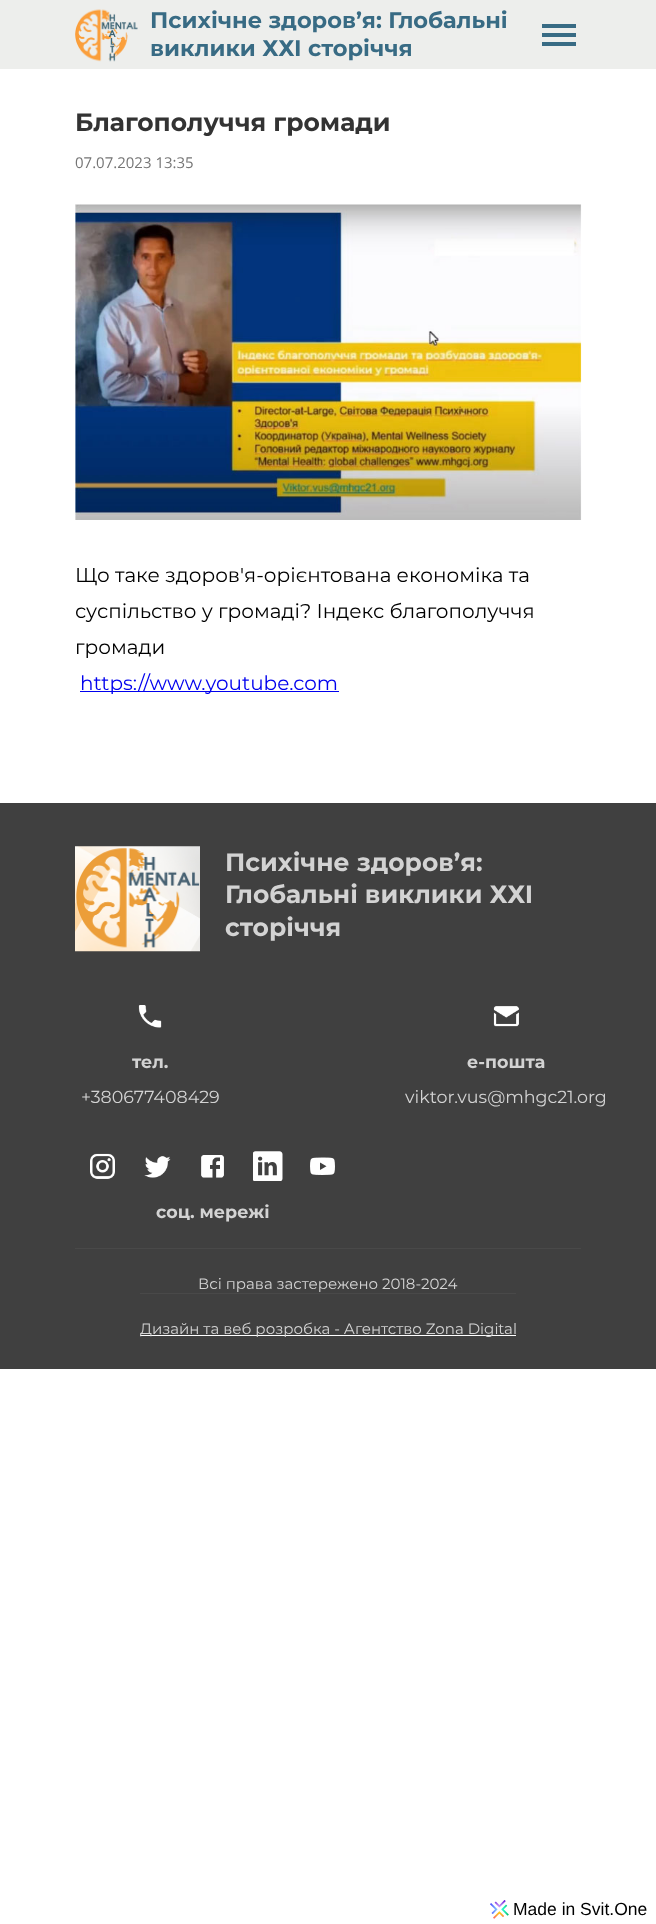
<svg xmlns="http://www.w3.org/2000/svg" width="656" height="1924">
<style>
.a{font:bold 22.5px Montserrat;fill:#386b84}
.b{font:bold 25px Montserrat;fill:#333}
.c{font:15px Open Sans;fill:#757575}
.d{font:20px Montserrat;fill:#000}
.e{font:20px Montserrat;fill:#00e}
.f{font:bold 25px Montserrat;fill:#d3d3d3}
.g{font:bold 17.5px Montserrat;fill:#d3d3d3}
.h{font:17.5px Montserrat;fill:#d3d3d3}
.i{font:15px Montserrat;fill:#d3d3d3}
.j{font:17.5px Liberation Sans;fill:#000}
</style>
<rect width="100%" height="100%" fill="#fff"/>
<path fill="#edeeec" d="M0 0h656v69H0z"/>
<image href="1.png" x="75" y="9" width="63" height="53"/>
<path fill="#386b84" d="M542 24h34v4H542z"/>
<path fill="#386b84" d="M542 33h34v4H542z"/>
<path fill="#386b84" d="M542 42h34v4H542z"/>
<image href="2.png" x="75" y="204" width="507" height="316"/>
<path fill="#00e" d="M80 691h259v1H80z"/>
<path fill="#404040" d="M0 803h656v566H0z"/>
<image href="3.png" x="75" y="846" width="125" height="106"/>
<image href="4.png" x="138" y="1005" width="24" height="23"/>
<image href="5.png" x="493" y="1006" width="26" height="21"/>
<image href="6.png" x="90" y="1153" width="25" height="26"/>
<image href="7.png" x="144" y="1156" width="27" height="22"/>
<image href="8.png" x="201" y="1155" width="23" height="23"/>
<image href="9.png" x="253" y="1151" width="30" height="30"/>
<image href="10.png" x="310" y="1157" width="25" height="18"/>
<path fill="#494949" d="M75 1248h506v1H75z"/>
<path fill="#494949" d="M140 1293h376v1H140z"/>
<path fill="#fff" d="M140 1335h376v1H140z"/>
<image href="11.png" x="490" y="1900" width="19" height="19"/>
<text class="a" x="150" y="28">Психічне здоров’я: Глобальні</text>
<text class="a" x="150" y="56">виклики ХХІ сторіччя</text>
<text class="b" x="75" y="131">Благополуччя громади</text>
<text class="c" x="75" y="168">07.07.2023 13:35</text>
<text class="d" x="75" y="582">Що таке здоров'я-орієнтована економіка та</text>
<text class="d" x="75" y="618">суспільство у громаді? Індекс благополуччя</text>
<text class="d" x="75" y="654">громади</text>
<text class="e" x="80" y="690">https://www.youtube.com</text>
<text class="f" x="225" y="871">Психічне здоров’я:</text>
<text class="f" x="225" y="903">Глобальні виклики ХХІ</text>
<text class="f" x="225" y="936">сторіччя</text>
<text class="g" x="132" y="1068">тел.</text>
<text class="h" x="81" y="1103">+380677408429</text>
<text class="g" x="467" y="1068">е-пошта</text>
<text class="h" x="405" y="1103">viktor.vus@mhgc21.org</text>
<text class="g" x="156" y="1218">соц. мережі</text>
<text class="i" x="198" y="1289">Всі права застережено 2018-2024</text>
<text class="i" x="140" y="1334">Дизайн та веб розробка - Агентство Zona Digital</text>
<text class="j" x="513" y="1915">Made in Svit.One</text>
</svg>
